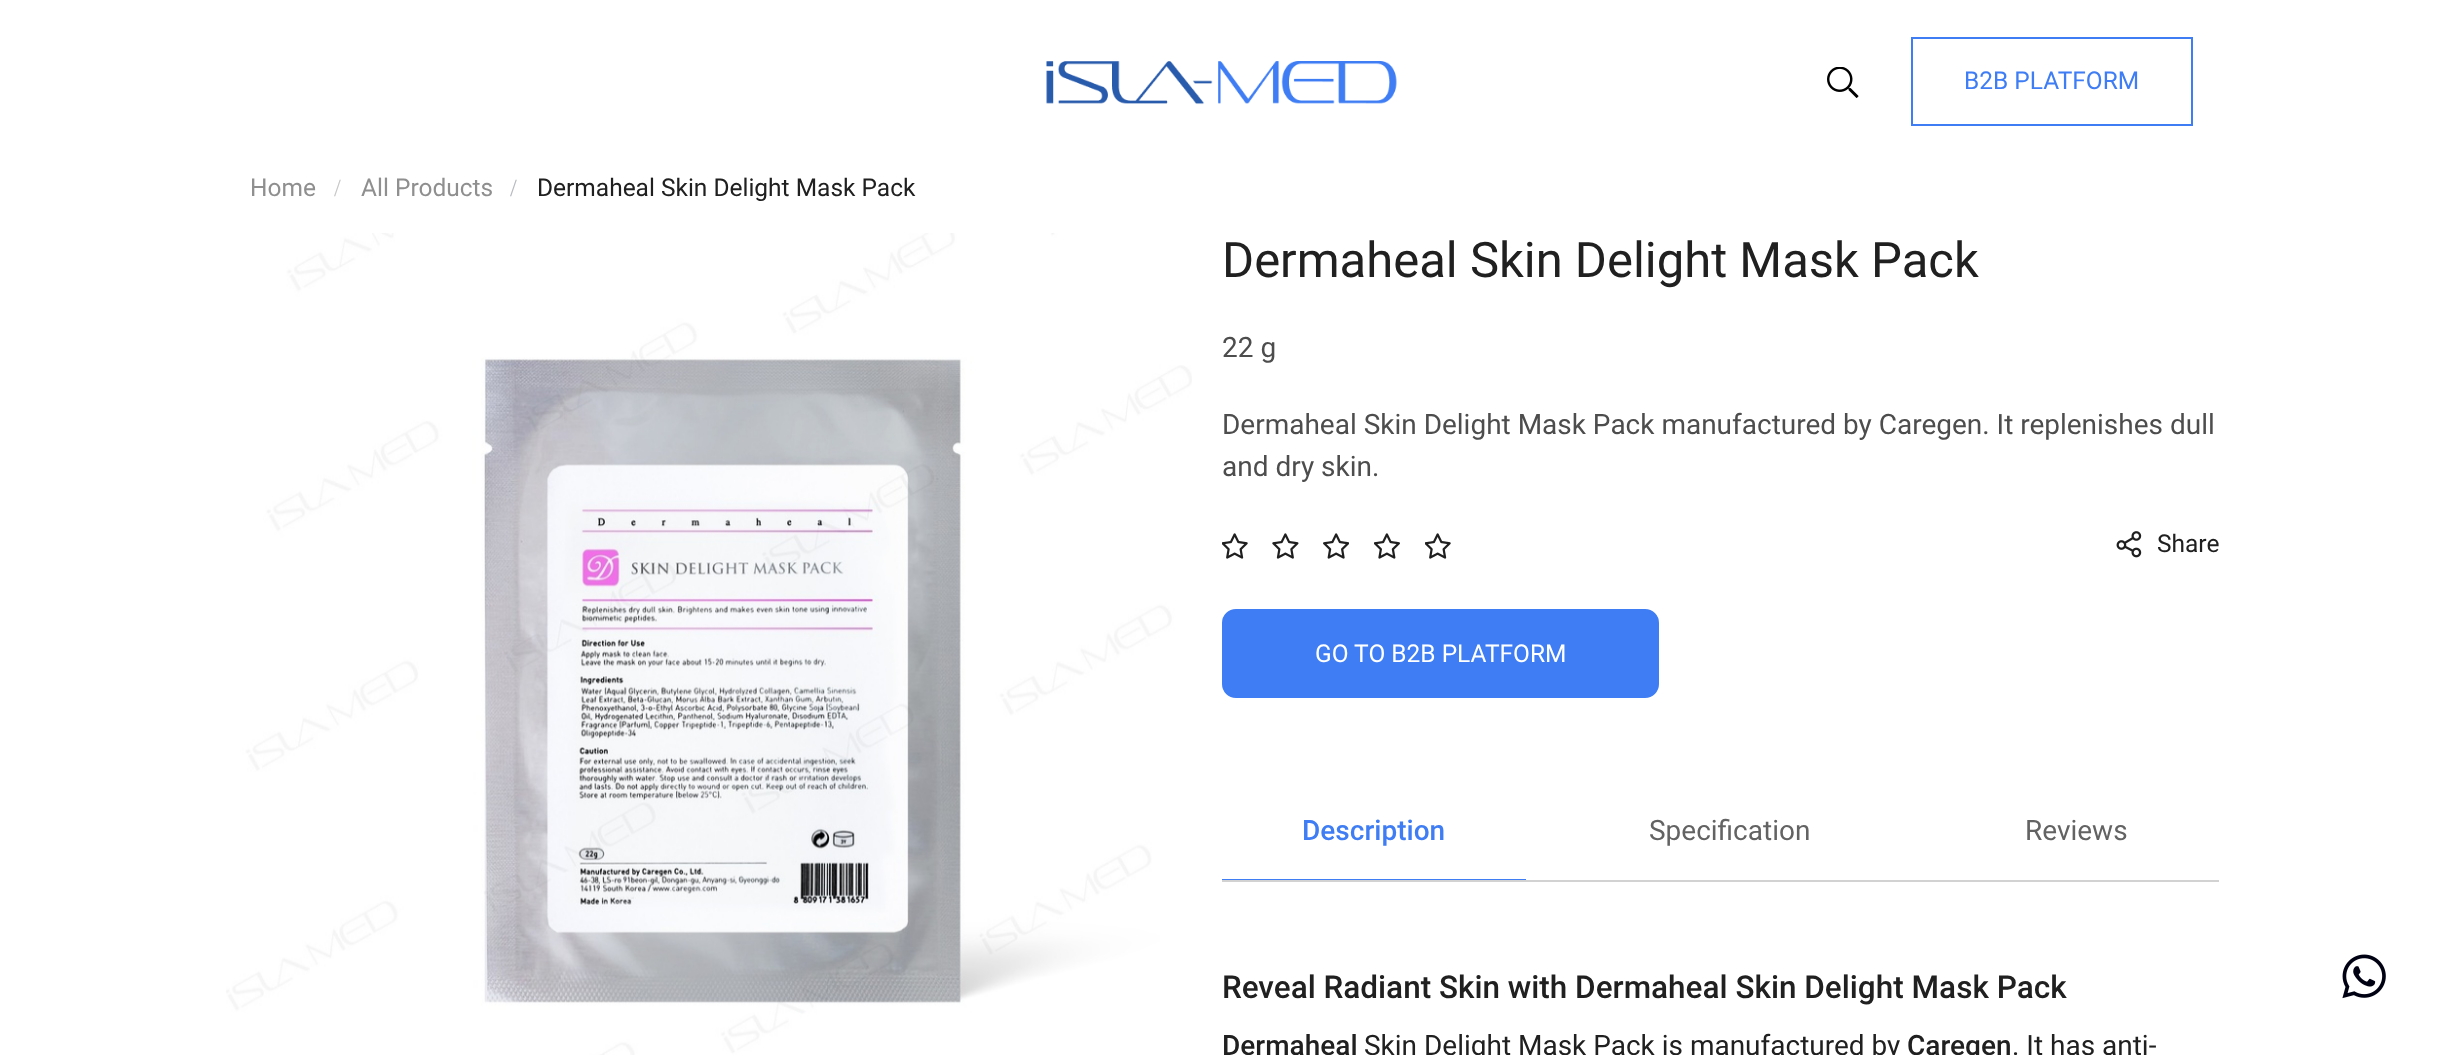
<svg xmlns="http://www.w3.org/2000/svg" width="2443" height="1055">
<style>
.a{font:24.5px Roboto;fill:#3e7df4}
.b{font:24.5px Roboto;fill:#8f8f8f}
.c{font:24.5px Liberation Serif;fill:#c7c7c7}
.d{font:24.5px Liberation Serif;fill:#b6babe}
.e{font:24.5px Roboto;fill:#202020}
.f{font:49px Roboto;fill:#202020}
.g{font:28px Roboto;fill:#4d4d4d}
.h{font:24.5px Roboto;fill:#fff}
.i{font:500 28px Roboto;fill:#3e7df4}
.j{font:28px Roboto;fill:#636363}
.k{font:500 31.5px Roboto;fill:#202020}
.l{font:500 28px Roboto;fill:#202020}
.m{font:28px Roboto;fill:#202020}
</style>
<rect width="100%" height="100%" fill="#fff"/>
<image href="1.png" x="1046" y="61" width="351" height="44"/>
<image href="2.png" x="1827" y="67" width="32" height="31"/>
<path fill="none" stroke="#3e7df4" stroke-width="2" d="M1912 38h280v87H1912z"/>
<image href="3.png" x="226" y="233" width="966" height="822"/>
<image href="4.png" x="1222" y="533" width="26" height="26"/>
<image href="5.png" x="1272" y="533" width="27" height="26"/>
<image href="6.png" x="1323" y="533" width="26" height="26"/>
<image href="7.png" x="1374" y="533" width="26" height="26"/>
<image href="4.png" x="1425" y="533" width="26" height="26"/>
<image href="8.png" x="2116" y="531" width="26" height="27"/>
<rect fill="#3e7df4" stroke="#3e7df4" stroke-width="2" x="1223" y="610" width="435" height="87" rx="13"/>
<path fill="#d2d2d2" d="M1222 880h997v2H1222z"/>
<path fill="#3e7df4" d="M1222 879h304v1H1222z"/>
<image href="9.png" x="2342" y="954" width="44" height="45"/>
<text class="a" x="1964" y="89">B2B PLATFORM</text>
<text class="b" x="250" y="196">Home</text>
<text class="c" x="334" y="196">/</text>
<text class="b" x="361" y="196">All Products</text>
<text class="d" x="510" y="196">/</text>
<text class="e" x="537" y="196">Dermaheal Skin Delight Mask Pack</text>
<text class="f" x="1222" y="277">Dermaheal Skin Delight Mask Pack</text>
<text class="g" x="1222" y="357">22 g</text>
<text class="g" x="1222" y="434">Dermaheal Skin Delight Mask Pack manufactured by Caregen. It replenishes dull</text>
<text class="g" x="1222" y="476">and dry skin.</text>
<text class="e" x="2157" y="552">Share</text>
<text class="h" x="1315" y="662">GO TO B2B PLATFORM</text>
<text class="i" x="1302" y="840">Description</text>
<text class="j" x="1649" y="840">Specification</text>
<text class="j" x="2025" y="840">Reviews</text>
<text class="k" x="1222" y="998">Reveal Radiant Skin with Dermaheal Skin Delight Mask Pack</text>
<text class="l" x="1222" y="1055">Dermaheal</text>
<text class="m" x="1364" y="1055">Skin Delight Mask Pack is manufactured by</text>
<text class="l" x="1907" y="1055">Caregen</text>
<text class="m" x="2012" y="1055">. It has anti-</text>
</svg>
